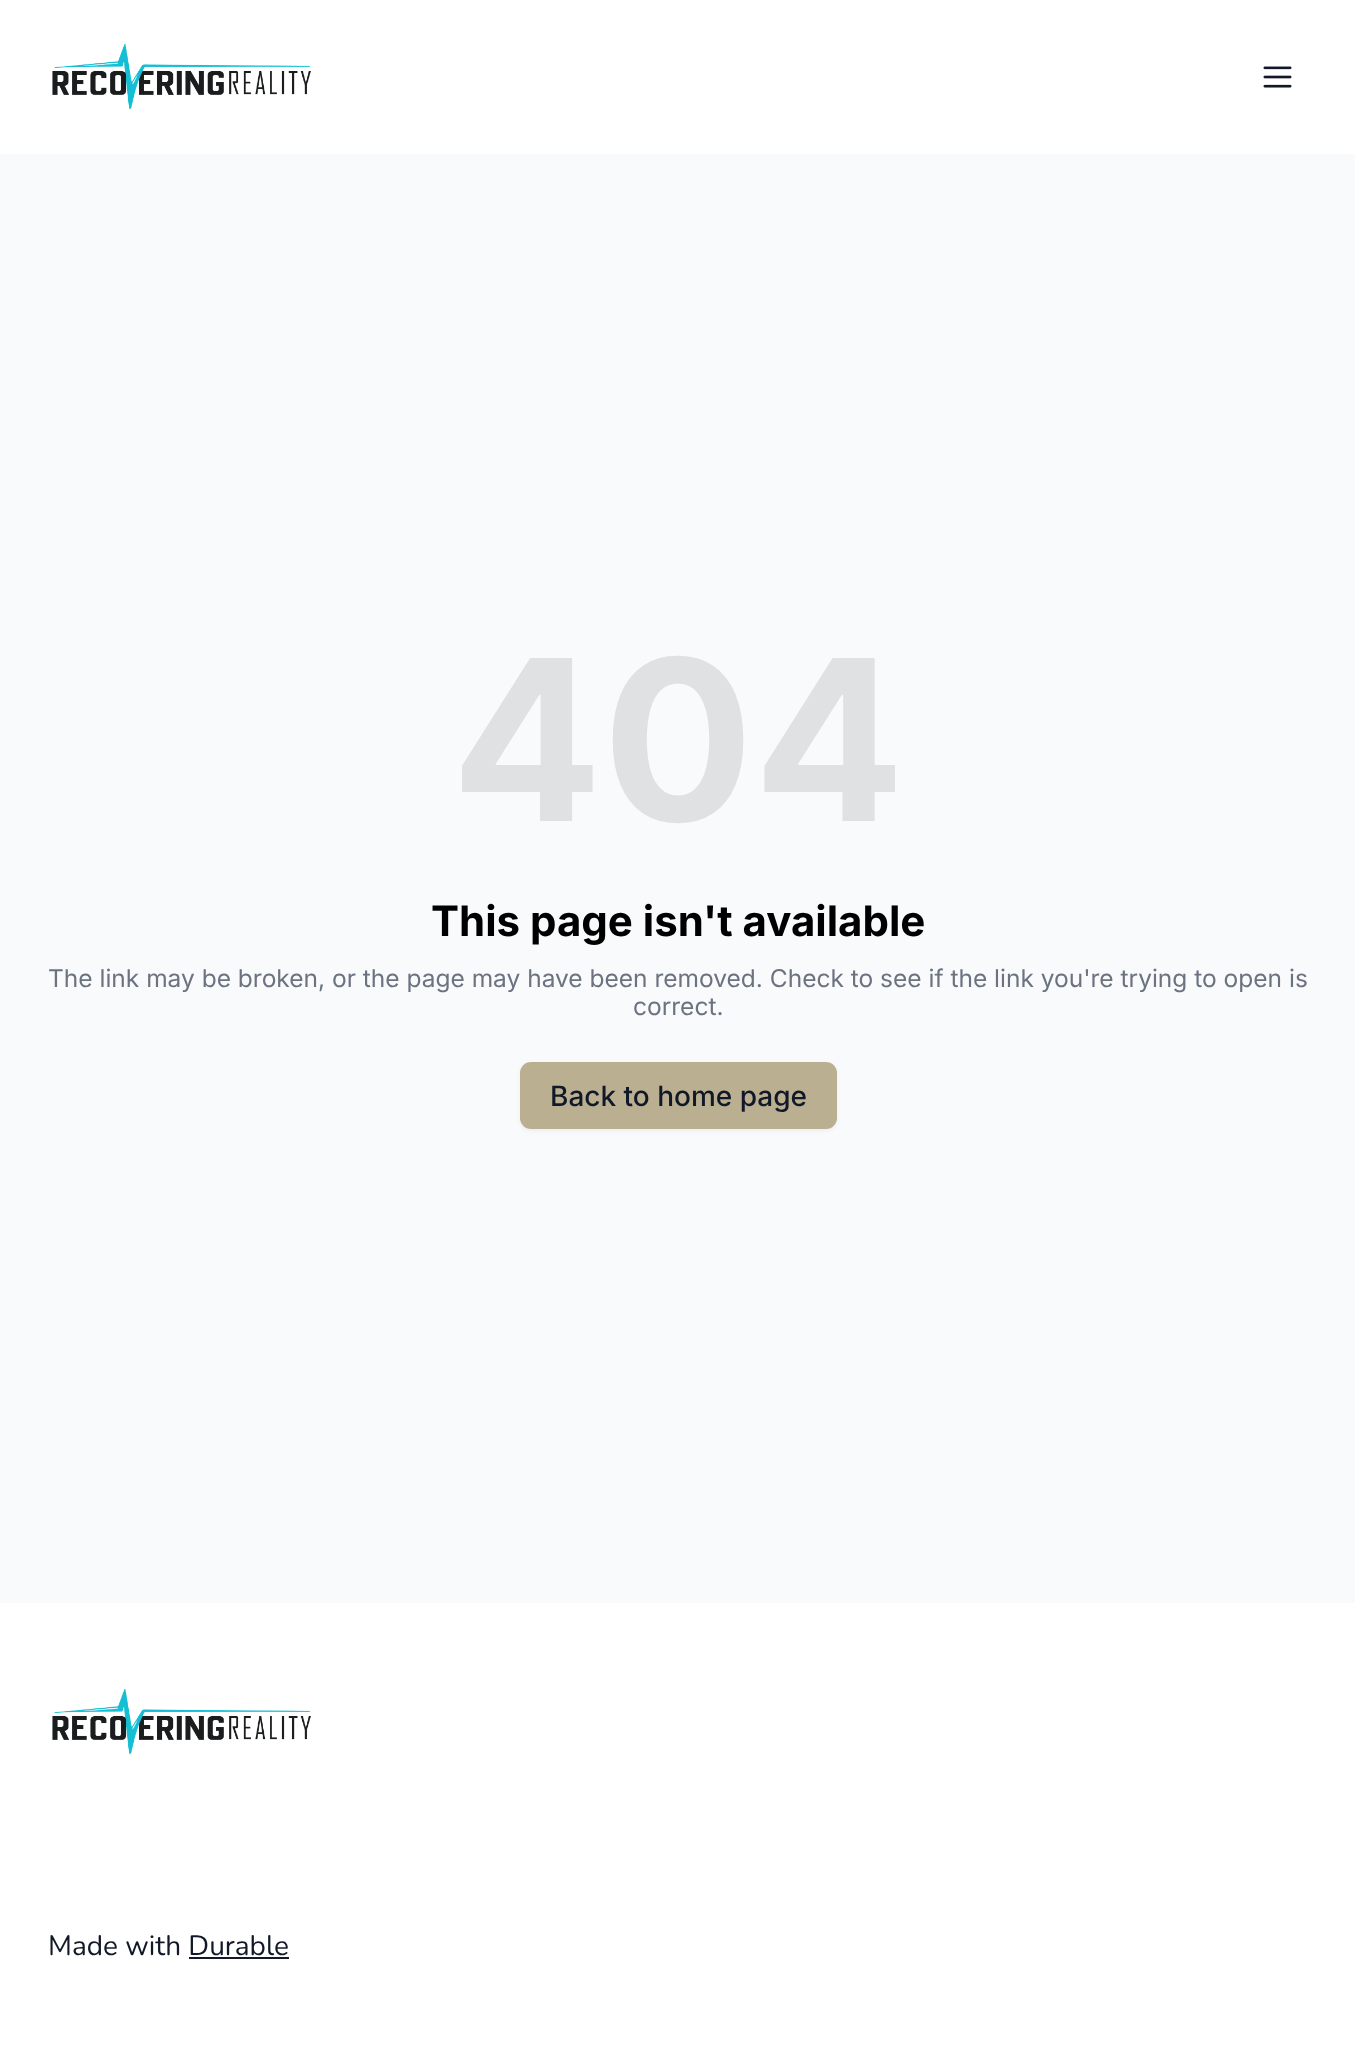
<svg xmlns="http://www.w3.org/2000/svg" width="1355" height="2050">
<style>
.a{font:bold 224px Inter;fill:#e0e1e2}
.b{font:bold 42px Inter;fill:#000}
.c{font:24.5px Inter;fill:#6b7280}
.d{font:500 28px Inter;fill:#111827}
.e{font:200 28px Nunito;fill:#111827}
</style>
<rect width="100%" height="100%" fill="#fff"/>
<image href="1.png" x="52" y="43" width="259" height="67"/>
<image href="2.png" x="1263" y="66" width="29" height="22"/>
<path fill="#f9fafb" d="M0 154h1355v1449H0z"/>
<rect fill="#0000000d" filter="blur(2px)" x="520" y="1064" width="317" height="67" rx="11"/>
<rect fill="#bbaf91" x="520" y="1062" width="317" height="67" rx="11"/>
<image href="1.png" x="52" y="1688" width="259" height="67"/>
<path fill="#111827" d="M189 1957h100v2H189z"/>
<text class="a" x="451" y="821">404</text>
<text class="b" x="431" y="936">This page isn't available</text>
<text class="c" x="48" y="987">The link may be broken, or the page may have been removed. Check to see if the link you're trying to open is</text>
<text class="c" x="633" y="1015">correct.</text>
<text class="d" x="550" y="1106">Back to home page</text>
<text class="e" x="48" y="1955">Made with Durable</text>
</svg>
